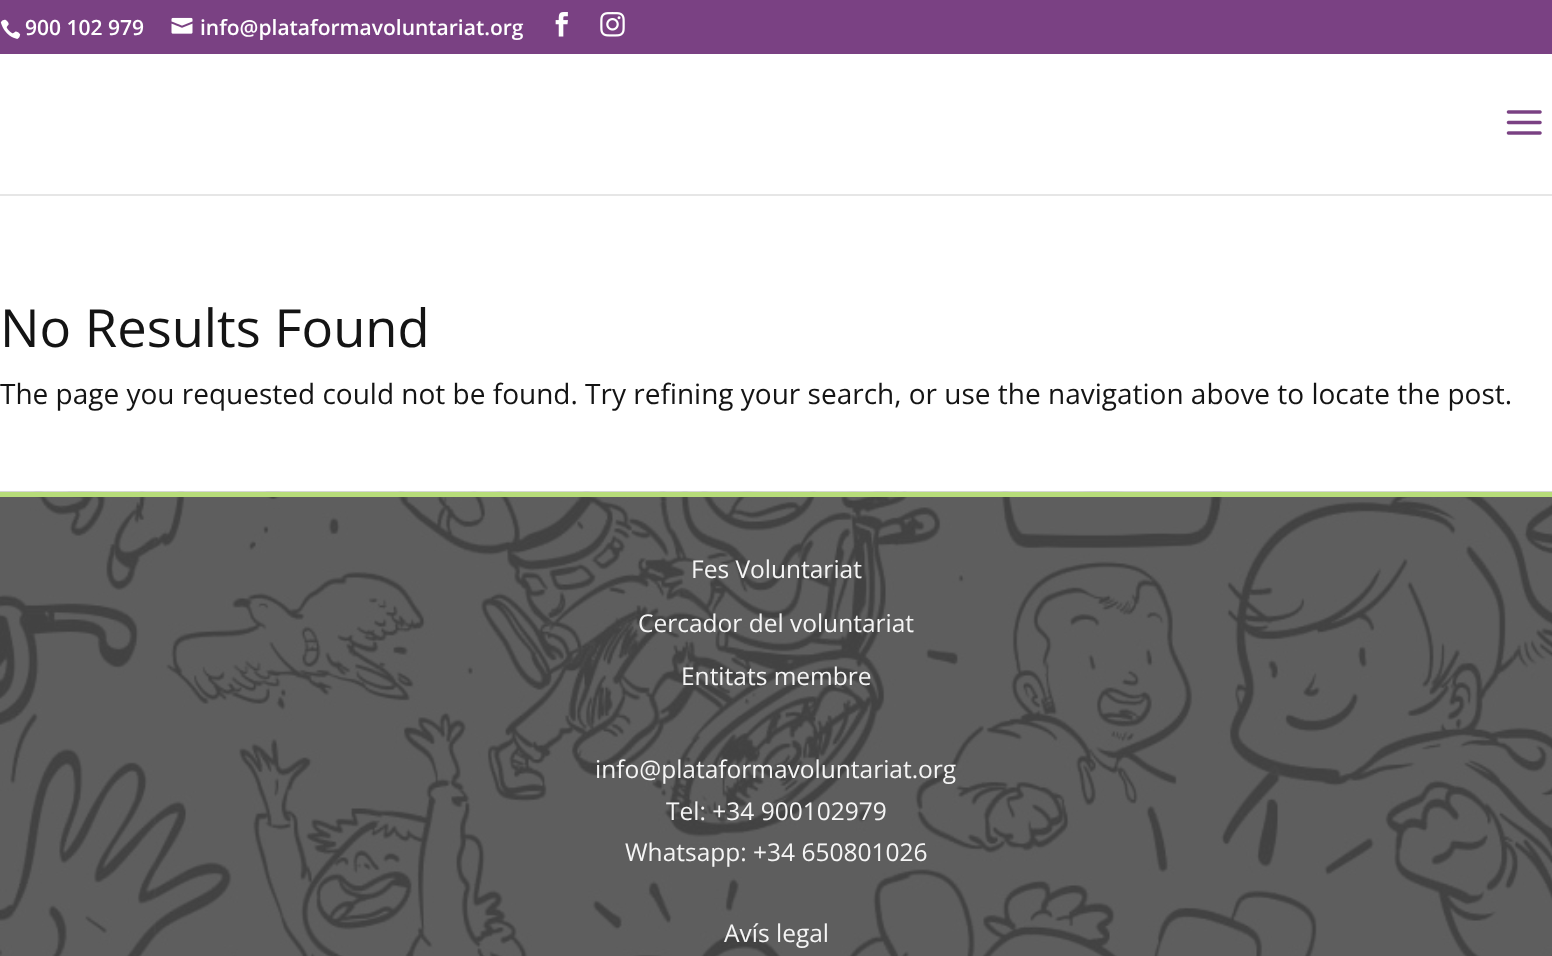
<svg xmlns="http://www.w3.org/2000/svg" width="1552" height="956">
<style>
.a{font:600 21px Open Sans;fill:#fff}
.b{font:52.5px Open Sans;fill:#141414}
.c{font:28px Open Sans;fill:#141414}
.d{font:24.5px Open Sans;fill:#f5f5f5}
</style>
<rect width="100%" height="100%" fill="#fff"/>
<path fill="#7a4183" d="M0 0h1552v54H0z"/>
<image href="1.png" x="0" y="19" width="21" height="20"/>
<image href="2.png" x="171" y="17" width="22" height="17"/>
<image href="3.png" x="555" y="12" width="13" height="25"/>
<image href="4.png" x="600" y="12" width="25" height="25"/>
<path fill="#e6e6e6" d="M0 194h1552v2H0z"/>
<image href="5.png" x="1506" y="110" width="36" height="25"/>
<image href="6.png" x="0" y="491" width="1552" height="465"/>
<path fill="#b7dd79" d="M0 492h1552v5H0z"/>
<text class="a" x="25" y="35">900 102 979</text>
<text class="a" x="200" y="35">info@plataformavoluntariat.org</text>
<text class="b" x="0" y="347">No Results Found</text>
<text class="c" x="0" y="404">The page you requested could not be found. Try refining your search, or use the navigation above to locate the post.</text>
<text class="d" x="691" y="578">Fes Voluntariat</text>
<text class="d" x="638" y="632">Cercador del voluntariat</text>
<text class="d" x="681" y="685">Entitats membre</text>
<text class="d" x="595" y="778">info@plataformavoluntariat.org</text>
<text class="d" x="666" y="820">Tel: +34 900102979</text>
<text class="d" x="625" y="861">Whatsapp: +34 650801026</text>
<text class="d" x="724" y="942">Avís legal</text>
</svg>
